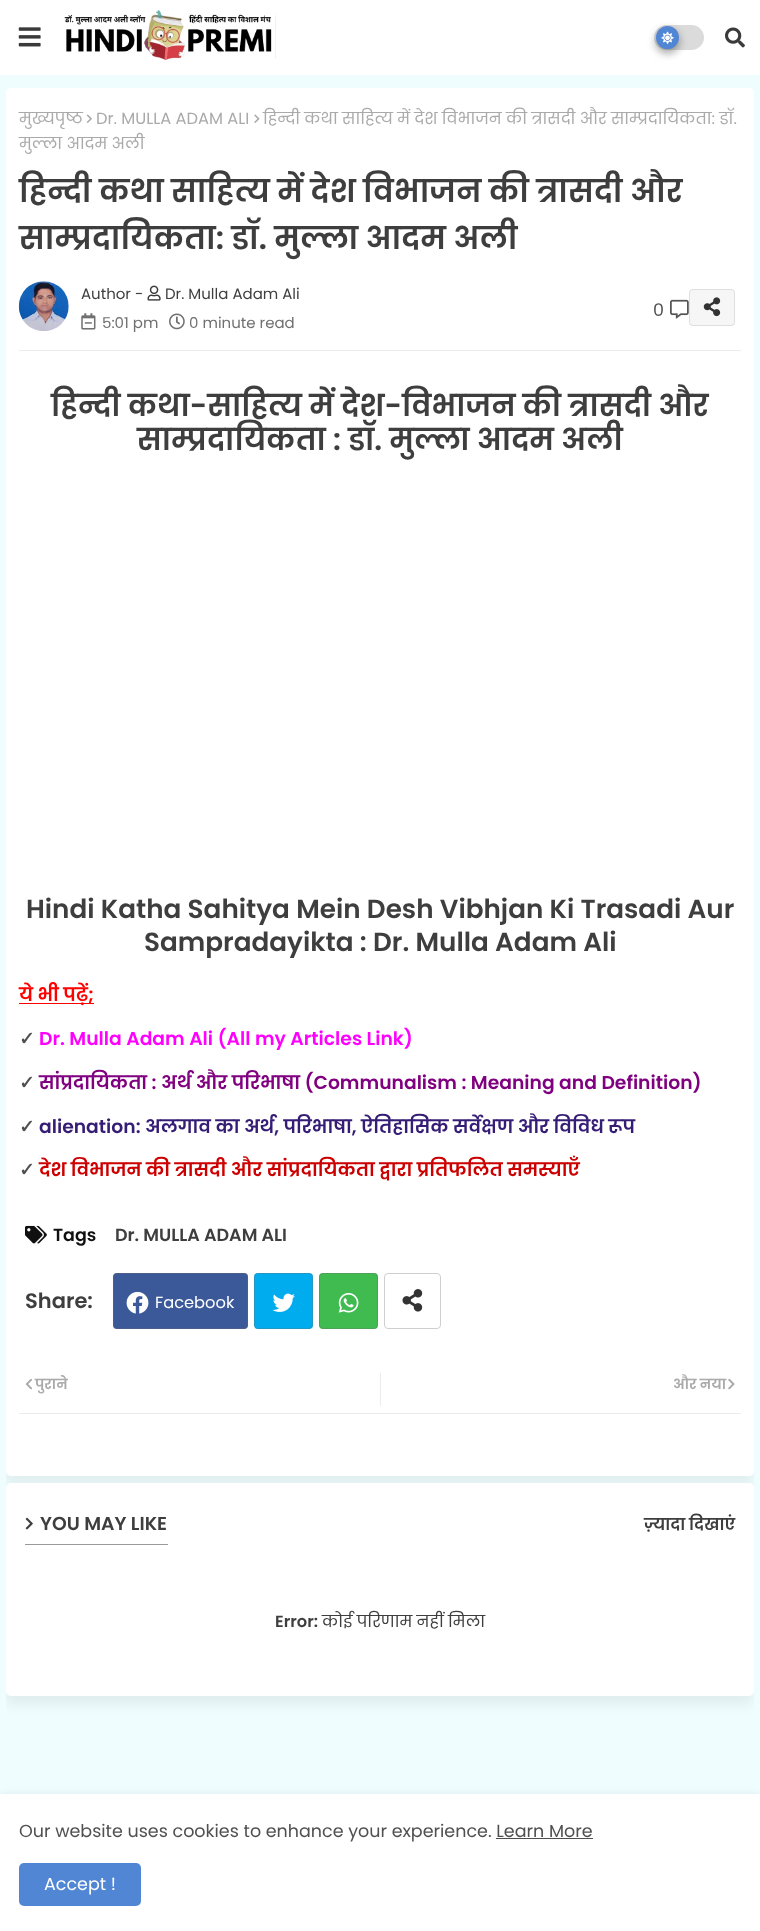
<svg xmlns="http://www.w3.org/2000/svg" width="760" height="1931">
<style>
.a{font:16.25px Poppins;fill:#aaa}
.b{font:600 31.25px Poppins;fill:#3e3e3e}
.c{font:15px Poppins;fill:#3e3e3e}
.d{font:15px Poppins;fill:#707070}
.e{font:17.5px Poppins;fill:#505050}
.f{font:600 30px Poppins;fill:#3e3e3e}
.g{font:600 26.25px Poppins;fill:#3e3e3e}
.h{font:600 18.75px Poppins;fill:#f00}
.i{font:bold 18.75px DejaVu Sans;fill:#505050}
.j{font:600 18.75px Poppins;fill:#ff00fe}
.k{font:600 18.75px Poppins;fill:#800180}
.l{font:600 18.75px Poppins;fill:#351c75}
.m{font:600 18.75px Poppins;fill:#c00}
.n{font:600 17.5px Poppins;fill:#101010}
.o{font:600 17.5px Poppins;fill:#3e3e3e}
.p{font:600 21px Poppins;fill:#3e3e3e}
.q{font:16.25px Poppins;fill:#fff}
.r{font:600 14px Poppins;fill:#aaa}
.s{font:600 18.75px Poppins;fill:#3e3e3e}
.t{font:600 16.25px Poppins;fill:#3e3e3e}
.u{font:16.25px Poppins;fill:#3e3e3e}
.v{font:17.5px Poppins;fill:#fff}
</style>
<defs>
<clipPath id="clip1"><path d="M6 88h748v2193H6z"/></clipPath>
</defs>
<rect width="100%" height="100%" fill="#f0fdff"/>
<path fill="#fff" d="M0 0h760v75H0z"/>
<image href="1.png" x="18" y="27" width="23" height="20"/>
<image href="2.png" x="64" y="10" width="212" height="50"/>
<rect fill="#dbdbdb" x="654" y="25" width="50" height="25" rx="12.5"/>
<rect fill="#0000003b" filter="blur(4px)" x="656" y="30" width="23" height="23" rx="11.5"/>
<rect fill="#00000029" filter="blur(4px)" x="656" y="30" width="23" height="23" rx="11.5"/>
<circle fill="#5186d5" cx="667.5" cy="37.5" r="11.5"/>
<image href="3.png" x="661" y="31" width="13" height="13"/>
<image href="4.png" x="725" y="27" width="20" height="21"/>
<g clip-path="url(#clip1)">
<rect fill="#0000000f" filter="blur(6px)" x="5" y="96" width="748" height="1389" rx="5"/>
</g>
<rect fill="#fff" x="6" y="88" width="748" height="1388" rx="5"/>
<image href="5.png" x="86" y="114" width="6" height="9"/>
<image href="6.png" x="254" y="114" width="6" height="9"/>
<path fill="#ececec" d="M19 350h722v1H19z"/>
<image href="7.png" x="18" y="281" width="51" height="50"/>
<image href="8.png" x="147" y="285" width="14" height="16"/>
<image href="9.png" x="81" y="313" width="15" height="17"/>
<image href="10.png" x="169" y="313" width="16" height="17"/>
<image href="11.png" x="670" y="299" width="19" height="20"/>
<rect fill="#f6f6f6" x="689" y="289" width="46" height="37" rx="4"/>
<rect fill="none" stroke="#81818130" x="689.5" y="289.5" width="45" height="36" rx="3.5"/>
<image href="12.png" x="703" y="297" width="18" height="20"/>
<path fill="#f00" d="M19 1003h75v1H19z"/>
<image href="13.png" x="25" y="1225" width="22" height="19"/>
<rect fill="#3b5999" x="113" y="1273" width="135" height="56" rx="4"/>
<rect fill="none" stroke="#6e6e6e54" x="113.5" y="1273.5" width="134" height="55" rx="3.5"/>
<image href="14.png" x="126" y="1291" width="23" height="23"/>
<rect fill="#00acee" x="254" y="1273" width="59" height="56" rx="4"/>
<rect fill="none" stroke="#6e6e6e54" x="254.5" y="1273.5" width="58" height="55" rx="3.5"/>
<image href="15.png" x="272" y="1293" width="23" height="19"/>
<rect fill="#3fbb50" x="319" y="1273" width="59" height="56" rx="4"/>
<rect fill="none" stroke="#6e6e6e54" x="319.5" y="1273.5" width="58" height="55" rx="3.5"/>
<image href="16.png" x="338" y="1293" width="21" height="20"/>
<rect fill="none" stroke="#cfcfcf" x="384.5" y="1273.5" width="56" height="55" rx="3.5"/>
<image href="17.png" x="402" y="1289" width="21" height="23"/>
<path fill="#ececec" d="M19 1413h722v1H19z"/>
<image href="18.png" x="25" y="1378" width="7" height="12"/>
<path fill="#ececec" d="M380 1373h1v33H380z"/>
<image href="19.png" x="728" y="1378" width="7" height="12"/>
<g clip-path="url(#clip1)">
<rect fill="#0000000f" filter="blur(6px)" x="5" y="1491" width="748" height="214" rx="5"/>
</g>
<rect fill="#fff" x="6" y="1483" width="748" height="213" rx="5"/>
<path fill="#999" d="M25 1544h143v1H25z"/>
<image href="20.png" x="25" y="1517" width="8" height="13"/>
<path fill="#0000001c" filter="blur(5px)" d="M0 1796h760v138H0z"/>
<path fill="#fff" d="M0 1794h760v137H0z"/>
<rect fill="#5186d5" x="19" y="1863" width="122" height="43" rx="5"/>
<text class="a" x="19" y="124">मुख्यपृष्ठ</text>
<text class="a" x="96" y="124">Dr. MULLA ADAM ALI</text>
<text class="a" x="263" y="124">हिन्दी कथा साहित्य में देश विभाजन की त्रासदी और साम्प्रदायिकता: डॉ.</text>
<text class="a" x="19" y="149">मुल्ला आदम अली</text>
<text class="b" x="19" y="202">हिन्दी कथा साहित्य में देश विभाजन की त्रासदी और</text>
<text class="b" x="19" y="249">साम्प्रदायिकता: डॉ. मुल्ला आदम अली</text>
<text class="c" x="81" y="299">Author -</text>
<text class="c" x="165" y="299">Dr. Mulla Adam Ali</text>
<text class="d" x="102" y="328">5:01 pm</text>
<text class="d" x="189" y="328">0 minute read</text>
<text class="e" x="653" y="316">0</text>
<text class="f" x="51" y="416">हिन्दी कथा-साहित्य में देश-विभाजन की त्रासदी और</text>
<text class="f" x="137" y="450">साम्प्रदायिकता : डॉ. मुल्ला आदम अली</text>
<text class="g" x="26" y="918">Hindi Katha Sahitya Mein Desh Vibhjan Ki Trasadi Aur</text>
<text class="g" x="144" y="951">Sampradayikta : Dr. Mulla Adam Ali</text>
<text class="h" x="19" y="1001">ये भी पढ़ें;</text>
<text class="i" x="19" y="1045">✓</text>
<text class="j" x="39" y="1045">Dr. Mulla Adam Ali (All my Articles Link)</text>
<text class="i" x="19" y="1089">✓</text>
<text class="k" x="39" y="1089">सांप्रदायिकता : अर्थ और परिभाषा (Communalism : Meaning and Definition)</text>
<text class="i" x="19" y="1133">✓</text>
<text class="l" x="39" y="1133">alienation: अलगाव का अर्थ, परिभाषा, ऐतिहासिक सर्वेक्षण और विविध रूप</text>
<text class="i" x="19" y="1176">✓</text>
<text class="m" x="39" y="1176">देश विभाजन की त्रासदी और सांप्रदायिकता द्वारा प्रतिफलित समस्याएँ</text>
<text class="n" x="53" y="1241">Tags</text>
<text class="o" x="115" y="1241">Dr. MULLA ADAM ALI</text>
<text class="p" x="25" y="1308">Share:</text>
<text class="q" x="155" y="1308">Facebook</text>
<text class="r" x="35" y="1389">पुराने</text>
<text class="r" x="673" y="1389">और नया</text>
<text class="s" x="40" y="1530">YOU MAY LIKE</text>
<text class="t" x="644" y="1530">ज़्यादा दिखाएं</text>
<text class="t" x="275" y="1627">Error:</text>
<text class="u" x="322" y="1627">कोई परिणाम नहीं मिला</text>
<text class="e" x="19" y="1837">Our website uses cookies to enhance your experience. Learn More</text>
<path fill="#4e4e4e" d="M496 1838h97v1H496z"/>
<text class="v" x="44" y="1890">Accept !</text>
</svg>
